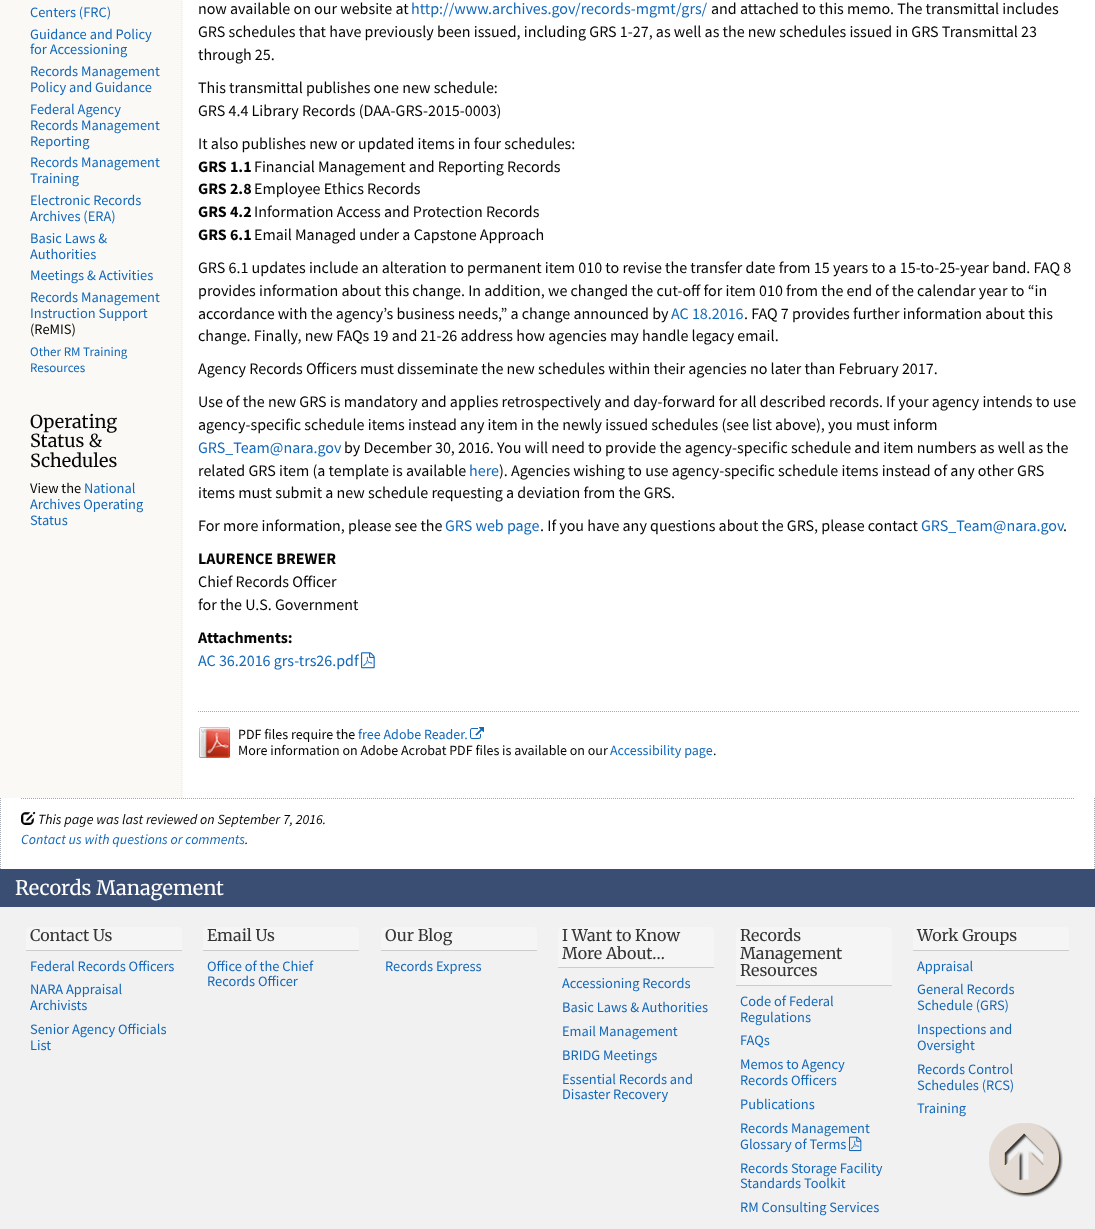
<svg xmlns="http://www.w3.org/2000/svg" width="1095" height="1229">
<style>
.a{font:14.4px Source Sans Pro;fill:#1368ba}
.b{font:14.4px Source Sans Pro;fill:#050505}
.c{font:13px Source Sans Pro;fill:#1368ba}
.d{font:300 18px Merriweather;fill:#050505}
.e{font:16px Source Sans Pro;fill:#050505}
.f{font:16px Source Sans Pro;fill:#1368ba}
.g{font:bold 16px Source Sans Pro;fill:#050505}
.h{font:14px Source Sans Pro;fill:#050505}
.i{font:14px Source Sans Pro;fill:#1368ba}
.j{font:italic 14px Source Sans Pro;fill:#050505}
.k{font:italic 14px Source Sans Pro;fill:#1368ba}
.l{font:300 20px Merriweather;fill:#fff}
.m{font:300 16px Merriweather;fill:#353535}
</style>
<rect width="100%" height="100%" fill="#fff"/>
<image href="1.png" x="0" y="0" width="183" height="798"/>
<image href="2.png" x="361" y="652" width="14" height="17"/>
<image href="3.png" x="199" y="727" width="32" height="31"/>
<path fill="none" stroke="#aaa" stroke-dasharray="1 1" d="M198 711.5h882"/>
<image href="4.png" x="470" y="727" width="14" height="12"/>
<path fill="none" stroke="#a4abb3" stroke-dasharray="1 1" d="M1094.5 798v71"/>
<path fill="none" stroke="#a4abb3" stroke-dasharray="1 1" d="M.5 798v71"/>
<path fill="none" stroke="#aaa" stroke-dasharray="1 1" d="M21 798.5h1053"/>
<image href="5.png" x="21" y="811" width="15" height="14"/>
<path fill="#f1f1f1" d="M0 907h1095v322H0z"/>
<path fill="#3a4e74" d="M0 869h1095v38H0z"/>
<path fill="#f5f5f5" d="M31 927h146c3 0 5 2 5 5v19h-156v-19c0-3 2-5 5-5z"/>
<path fill="#ccc" d="M26 950h156v1H26z"/>
<path fill="#f5f5f5" d="M208 927h146c3 0 5 2 5 5v19h-156v-19c0-3 2-5 5-5z"/>
<path fill="#ccc" d="M203 950h156v1H203z"/>
<path fill="#f5f5f5" d="M386 927h146c3 0 5 2 5 5v19h-156v-19c0-3 2-5 5-5z"/>
<path fill="#ccc" d="M381 950h156v1H381z"/>
<path fill="#f5f5f5" d="M563 927h146c3 0 5 2 5 5v36h-156v-36c0-3 2-5 5-5z"/>
<path fill="#ccc" d="M558 967h156v1H558z"/>
<path fill="#f5f5f5" d="M741 927h146c3 0 5 2 5 5v54h-156v-54c0-3 2-5 5-5z"/>
<path fill="#ccc" d="M736 985h156v1H736z"/>
<path fill="#f5f5f5" d="M918 927h146c3 0 5 2 5 5v19h-156v-19c0-3 2-5 5-5z"/>
<path fill="#ccc" d="M913 950h156v1H913z"/>
<image href="7.png" x="989" y="1123" width="74" height="74"/>
<image href="8.png" x="989" y="1123" width="74" height="74"/>
<text class="a" x="30" y="17">Centers (FRC)</text>
<text class="a" x="30" y="39">Guidance and Policy</text>
<text class="a" x="30" y="54">for Accessioning</text>
<text class="a" x="30" y="76">Records Management</text>
<text class="a" x="30" y="92">Policy and Guidance</text>
<text class="a" x="30" y="114">Federal Agency</text>
<text class="a" x="30" y="130">Records Management</text>
<text class="a" x="30" y="146">Reporting</text>
<text class="a" x="30" y="167">Records Management</text>
<text class="a" x="30" y="183">Training</text>
<text class="a" x="30" y="205">Electronic Records</text>
<text class="a" x="30" y="221">Archives (ERA)</text>
<text class="a" x="30" y="243">Basic Laws &amp;</text>
<text class="a" x="30" y="259">Authorities</text>
<text class="a" x="30" y="280">Meetings &amp; Activities</text>
<text class="a" x="30" y="302">Records Management</text>
<text class="a" x="30" y="318">Instruction Support</text>
<text class="b" x="30" y="334">(ReMIS)</text>
<text class="c" x="30" y="356">Other RM Training</text>
<text class="c" x="30" y="372">Resources</text>
<text class="d" x="30" y="428">Operating</text>
<text class="d" x="30" y="447">Status &amp;</text>
<text class="d" x="30" y="467">Schedules</text>
<text class="b" x="30" y="493">View the</text>
<text class="a" x="84" y="493">National</text>
<text class="a" x="30" y="509">Archives Operating</text>
<text class="a" x="30" y="525">Status</text>
<text class="e" x="198" y="14">now available on our website at</text>
<text class="f" x="411" y="14">http://www.archives.gov/records-mgmt/grs/</text>
<text class="e" x="711" y="14">and attached to this memo. The transmittal includes</text>
<text class="e" x="198" y="37">GRS schedules that have previously been issued, including GRS 1-27, as well as the new schedules issued in GRS Transmittal 23</text>
<text class="e" x="198" y="60">through 25.</text>
<text class="e" x="198" y="93">This transmittal publishes one new schedule:</text>
<text class="e" x="198" y="116">GRS 4.4 Library Records (DAA-GRS-2015-0003)</text>
<text class="e" x="198" y="149">It also publishes new or updated items in four schedules:</text>
<text class="g" x="198" y="172">GRS 1.1</text>
<text class="e" x="254" y="172">Financial Management and Reporting Records</text>
<text class="g" x="198" y="194">GRS 2.8</text>
<text class="e" x="254" y="194">Employee Ethics Records</text>
<text class="g" x="198" y="217">GRS 4.2</text>
<text class="e" x="254" y="217">Information Access and Protection Records</text>
<text class="g" x="198" y="240">GRS 6.1</text>
<text class="e" x="254" y="240">Email Managed under a Capstone Approach</text>
<text class="e" x="198" y="273">GRS 6.1 updates include an alteration to permanent item 010 to revise the transfer date from 15 years to a 15-to-25-year band. FAQ 8</text>
<text class="e" x="198" y="296">provides information about this change. In addition, we changed the cut-off for item 010 from the end of the calendar year to “in</text>
<text class="e" x="198" y="319">accordance with the agency’s business needs,” a change announced by</text>
<text class="f" x="671" y="319">AC 18.2016</text>
<text class="e" x="744" y="319">. FAQ 7 provides further information about this</text>
<text class="e" x="198" y="341">change. Finally, new FAQs 19 and 21-26 address how agencies may handle legacy email.</text>
<text class="e" x="198" y="374">Agency Records Officers must disseminate the new schedules within their agencies no later than February 2017.</text>
<text class="e" x="198" y="407">Use of the new GRS is mandatory and applies retrospectively and day-forward for all described records. If your agency intends to use</text>
<text class="e" x="198" y="430">agency-specific schedule items instead any item in the newly issued schedules (see list above), you must inform</text>
<text class="f" x="198" y="453">GRS_Team@nara.gov</text>
<text class="e" x="344" y="453">by December 30, 2016. You will need to provide the agency-specific schedule and item numbers as well as the</text>
<text class="e" x="198" y="476">related GRS item (a template is available</text>
<text class="f" x="469" y="476">here</text>
<text class="e" x="499" y="476">). Agencies wishing to use agency-specific schedule items instead of any other GRS</text>
<text class="e" x="198" y="498">items must submit a new schedule requesting a deviation from the GRS.</text>
<text class="e" x="198" y="531">For more information, please see the</text>
<text class="f" x="445" y="531">GRS web page</text>
<text class="e" x="540" y="531">. If you have any questions about the GRS, please contact</text>
<text class="f" x="921" y="531">GRS_Team@nara.gov</text>
<text class="e" x="1063" y="531">.</text>
<text class="g" x="198" y="564">LAURENCE BREWER</text>
<text class="e" x="198" y="587">Chief Records Officer</text>
<text class="e" x="198" y="610">for the U.S. Government</text>
<text class="g" x="198" y="643">Attachments:</text>
<text class="f" x="198" y="666">AC 36.2016 grs-trs26.pdf</text>
<text class="h" x="238" y="739">PDF files require the</text>
<text class="i" x="358" y="739">free Adobe Reader.</text>
<text class="h" x="238" y="755">More information on Adobe Acrobat PDF files is available on our</text>
<text class="i" x="610" y="755">Accessibility page</text>
<text class="h" x="713" y="755">.</text>
<text class="j" x="38" y="824">This page was last reviewed on September 7, 2016.</text>
<text class="k" x="21" y="844">Contact us with questions or comments</text>
<text class="j" x="245" y="844">.</text>
<text class="l" x="15" y="895">Records Management</text>
<text class="m" x="30" y="941">Contact Us</text>
<text class="a" x="30" y="971">Federal Records Officers</text>
<text class="a" x="30" y="994">NARA Appraisal</text>
<text class="a" x="30" y="1010">Archivists</text>
<text class="a" x="30" y="1034">Senior Agency Officials</text>
<text class="a" x="30" y="1050">List</text>
<text class="m" x="207" y="941">Email Us</text>
<text class="a" x="207" y="971">Office of the Chief</text>
<text class="a" x="207" y="986">Records Officer</text>
<text class="m" x="385" y="941">Our Blog</text>
<text class="a" x="385" y="971">Records Express</text>
<text class="m" x="562" y="941">I Want to Know</text>
<text class="m" x="562" y="959">More About…</text>
<text class="a" x="562" y="988">Accessioning Records</text>
<text class="a" x="562" y="1012">Basic Laws &amp; Authorities</text>
<text class="a" x="562" y="1036">Email Management</text>
<text class="a" x="562" y="1060">BRIDG Meetings</text>
<text class="a" x="562" y="1084">Essential Records and</text>
<text class="a" x="562" y="1099">Disaster Recovery</text>
<text class="m" x="740" y="941">Records</text>
<text class="m" x="740" y="959">Management</text>
<text class="m" x="740" y="976">Resources</text>
<text class="a" x="740" y="1006">Code of Federal</text>
<text class="a" x="740" y="1022">Regulations</text>
<text class="a" x="740" y="1045">FAQs</text>
<text class="a" x="740" y="1069">Memos to Agency</text>
<text class="a" x="740" y="1085">Records Officers</text>
<text class="a" x="740" y="1109">Publications</text>
<text class="a" x="740" y="1133">Records Management</text>
<text class="a" x="740" y="1149">Glossary of Terms</text>
<image href="6.png" x="849" y="1136" width="13" height="16"/>
<text class="a" x="740" y="1173">Records Storage Facility</text>
<text class="a" x="740" y="1188">Standards Toolkit</text>
<text class="a" x="740" y="1212">RM Consulting Services</text>
<text class="m" x="917" y="941">Work Groups</text>
<text class="a" x="917" y="971">Appraisal</text>
<text class="a" x="917" y="994">General Records</text>
<text class="a" x="917" y="1010">Schedule (GRS)</text>
<text class="a" x="917" y="1034">Inspections and</text>
<text class="a" x="917" y="1050">Oversight</text>
<text class="a" x="917" y="1074">Records Control</text>
<text class="a" x="917" y="1090">Schedules (RCS)</text>
<text class="a" x="917" y="1113">Training</text>
</svg>
